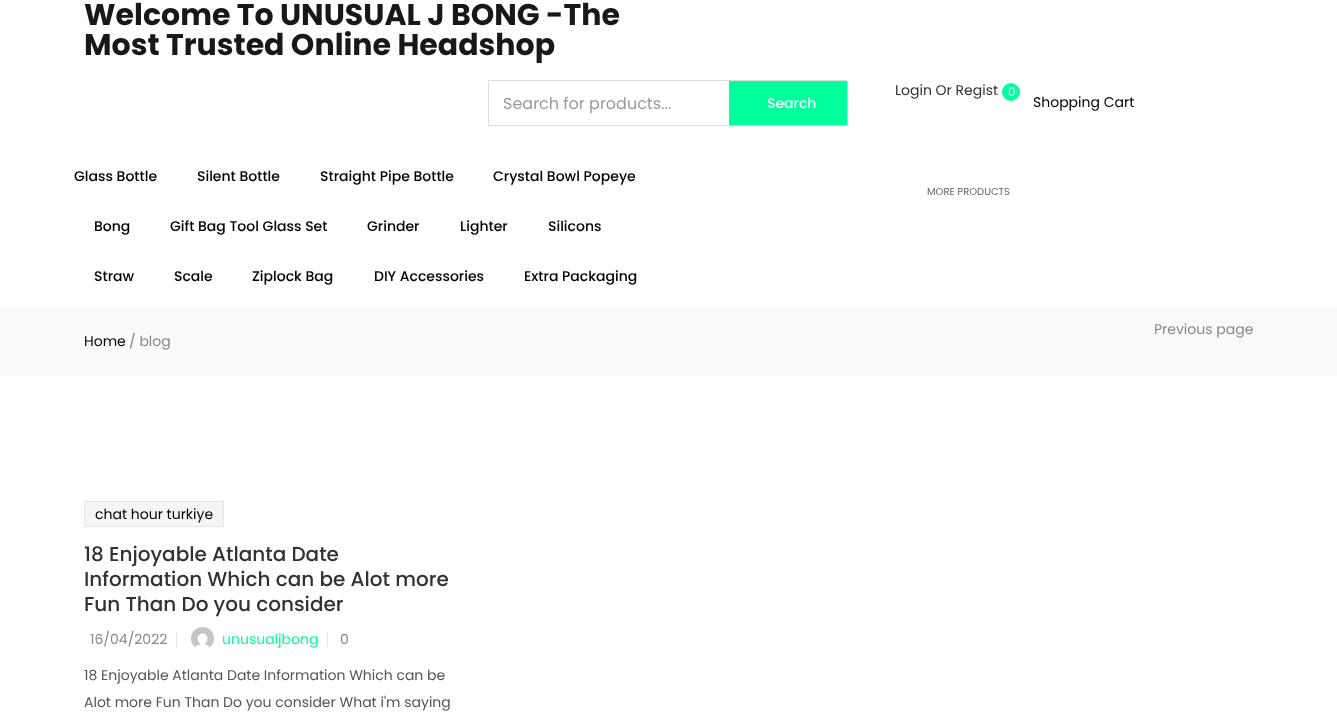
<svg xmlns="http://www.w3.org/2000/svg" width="1337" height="727">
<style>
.a{font:bold 30px Poppins;fill:#17181a}
.b{font:16px Poppins;fill:#999}
.c{font:500 14px Poppins;fill:#fff}
.d{font:14px Poppins;fill:#323232}
.e{font:12px Poppins;fill:#fff}
.f{font:14px Poppins;fill:#000}
.g{font:500 14px Poppins;fill:#000}
.h{font:10px Poppins;fill:#666}
.i{font:14px Poppins;fill:#888}
.j{font:500 20px Poppins;fill:#323232}
.k{font:14px Poppins;fill:#00ff9d}
.l{font:14px Poppins;fill:#555}
</style>
<rect width="100%" height="100%" fill="#fff"/>
<path fill="none" stroke="#ddd" d="M488.5 80.5h359v45H488.5z"/>
<path fill="#00ff9d" d="M729 81h118v44H729z"/>
<circle fill="#00ff9d" cx="1011" cy="92" r="9"/>
<path fill="#fafafa" d="M0 306h1337v70H0z"/>
<path fill="#f5f5f5" stroke="#e5e5e5" d="M84.5 501.5h139v25H84.5z"/>
<path fill="#e5e5e5" d="M176 632h1v15H176z"/>
<image href="1.png" x="191" y="627" width="23" height="21"/>
<path fill="#e5e5e5" d="M327 632h1v15H327z"/>
<text class="a" x="84" y="25">Welcome To UNUSUAL J BONG -The</text>
<text class="a" x="84" y="55">Most Trusted Online Headshop</text>
<text class="b" x="503" y="109">Search for products...</text>
<text class="c" x="767" y="108">Search</text>
<text class="d" x="895" y="95">Login Or Regist</text>
<text class="e" x="1008" y="96">0</text>
<text class="f" x="1033" y="107">Shopping Cart</text>
<text class="g" x="74" y="181">Glass Bottle</text>
<text class="g" x="197" y="181">Silent Bottle</text>
<text class="g" x="320" y="181">Straight Pipe Bottle</text>
<text class="g" x="493" y="181">Crystal Bowl Popeye</text>
<text class="g" x="94" y="231">Bong</text>
<text class="g" x="170" y="231">Gift Bag Tool Glass Set</text>
<text class="g" x="367" y="231">Grinder</text>
<text class="g" x="460" y="231">Lighter</text>
<text class="g" x="548" y="231">Silicons</text>
<text class="g" x="94" y="281">Straw</text>
<text class="g" x="174" y="281">Scale</text>
<text class="g" x="252" y="281">Ziplock Bag</text>
<text class="g" x="374" y="281">DIY Accessories</text>
<text class="g" x="524" y="281">Extra Packaging</text>
<text class="h" x="927" y="195">MORE PRODUCTS</text>
<text class="i" x="1154" y="334">Previous page</text>
<text class="f" x="84" y="346">Home</text>
<text class="i" x="129" y="346">/ blog</text>
<text class="f" x="95" y="519">chat hour turkiye</text>
<text class="j" x="84" y="561">18 Enjoyable Atlanta Date</text>
<text class="j" x="84" y="586">Information Which can be Alot more</text>
<text class="j" x="84" y="611">Fun Than Do you consider</text>
<text class="i" x="90" y="644">16/04/2022</text>
<text class="k" x="222" y="644">unusualjbong</text>
<text class="i" x="340" y="644">0</text>
<text class="l" x="84" y="680">18 Enjoyable Atlanta Date Information Which can be</text>
<text class="l" x="84" y="707">Alot more Fun Than Do you consider What i'm saying</text>
</svg>
